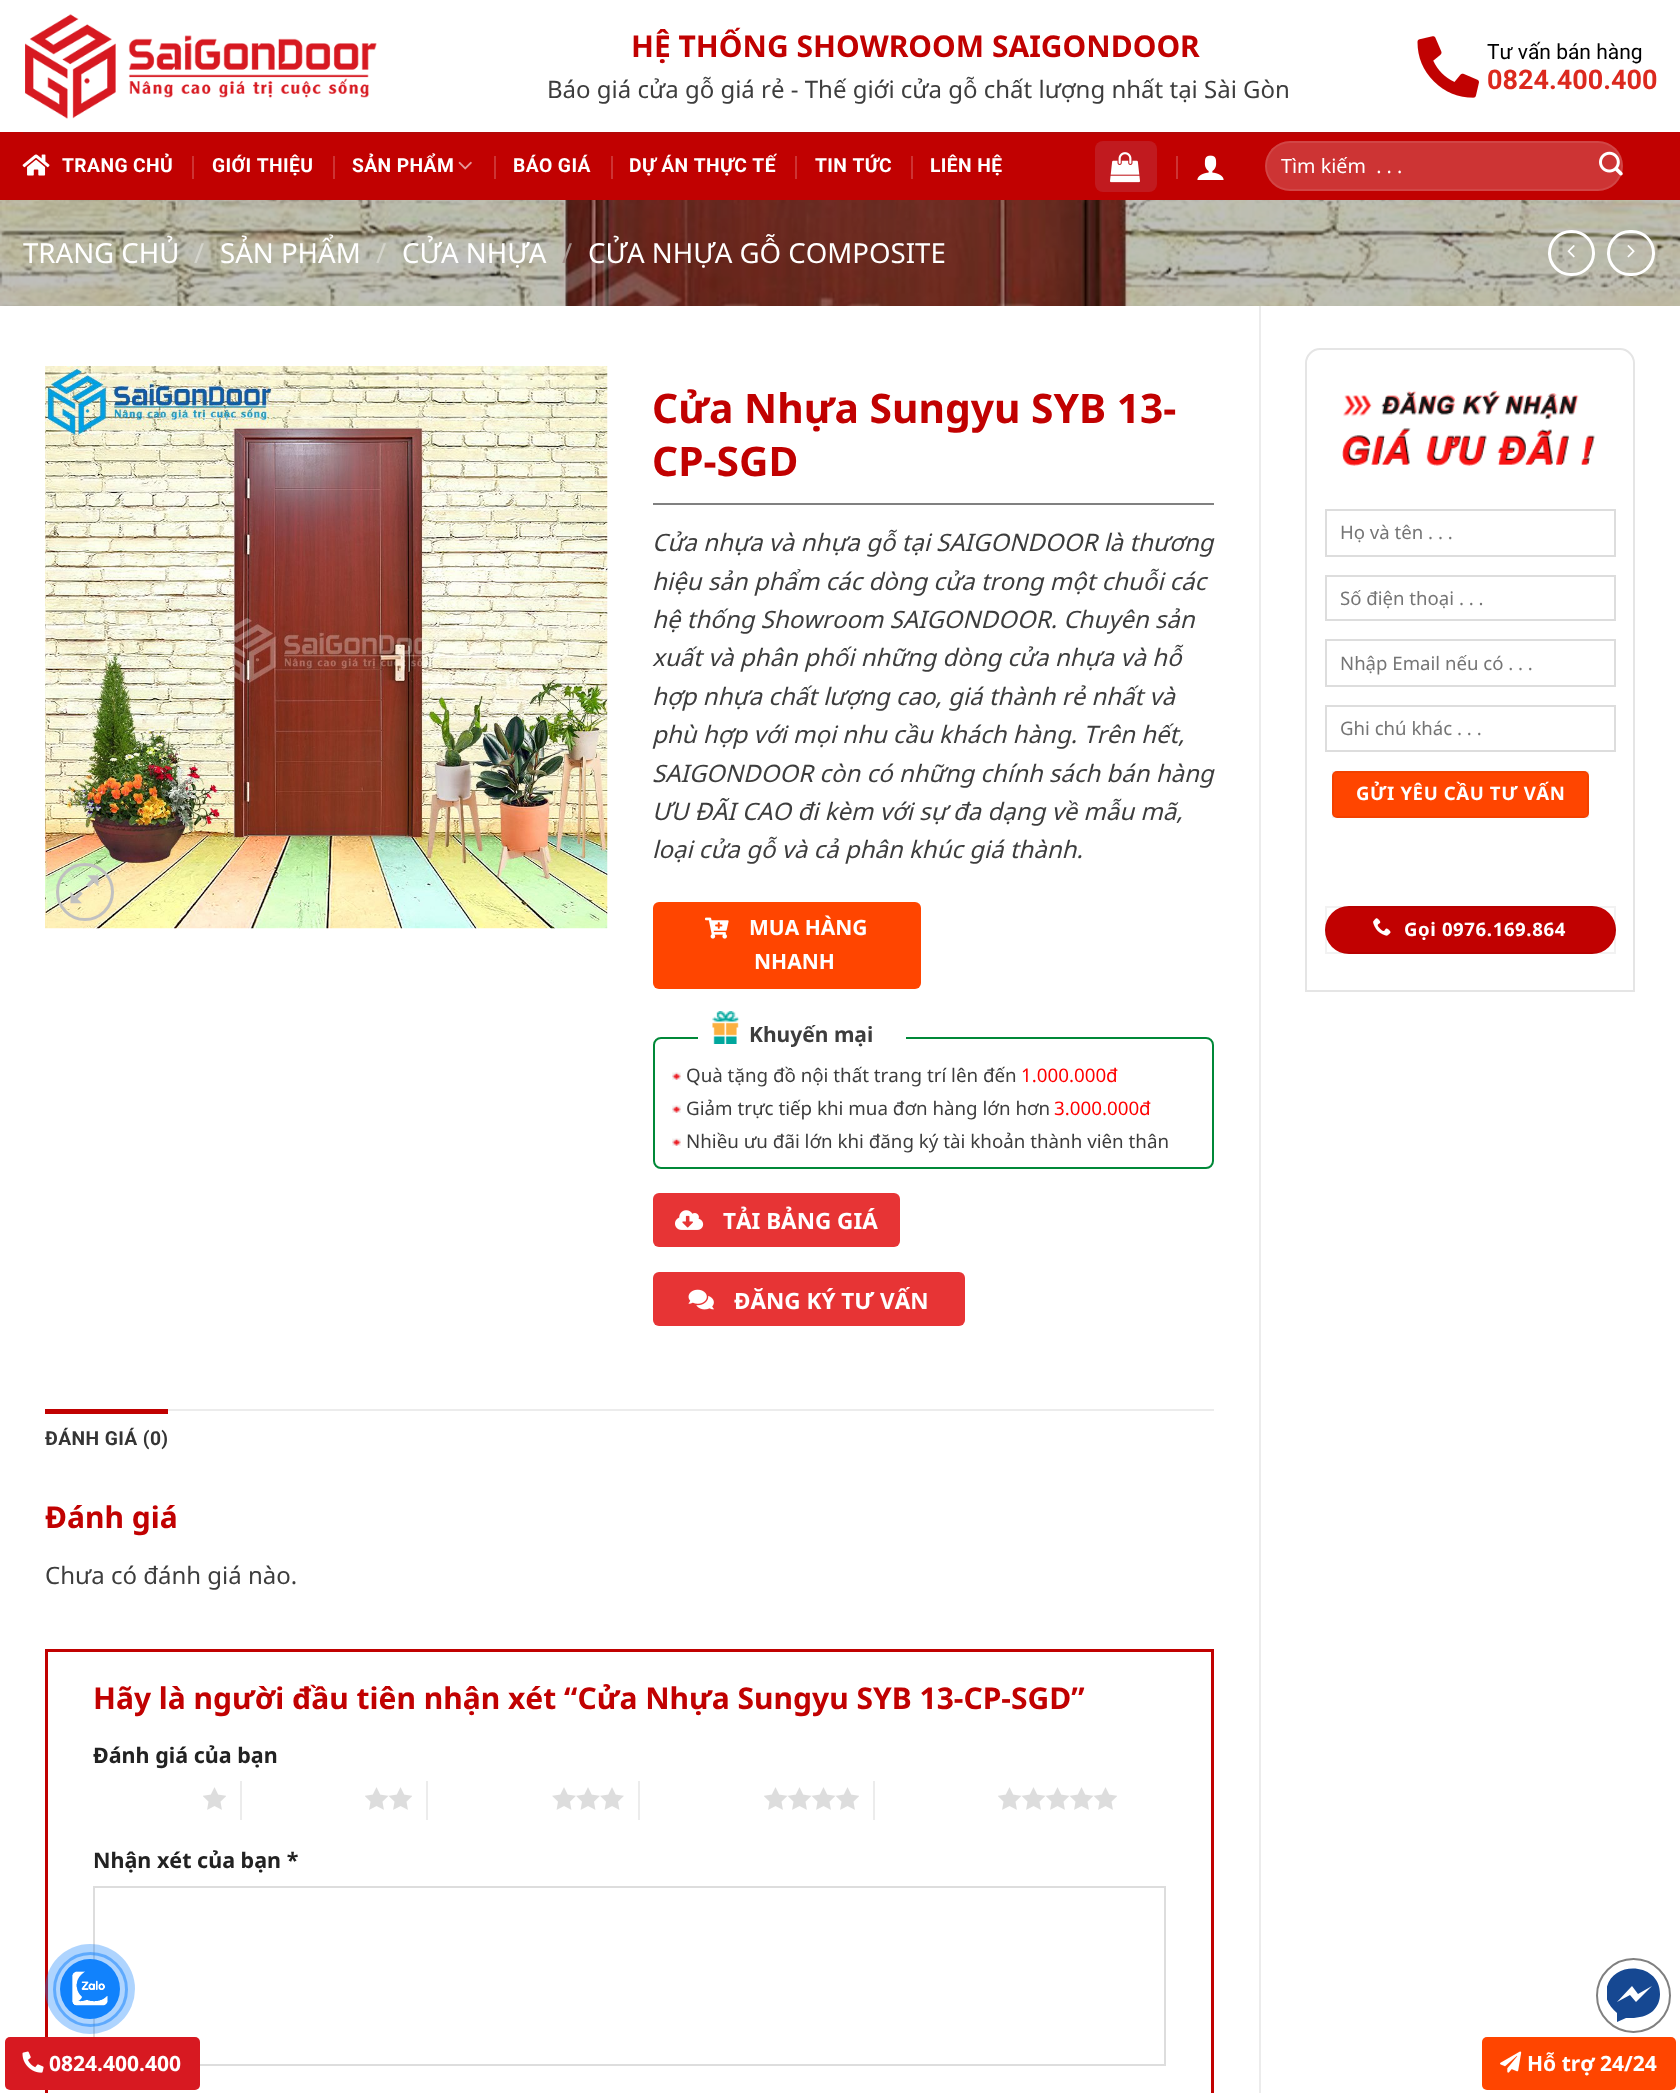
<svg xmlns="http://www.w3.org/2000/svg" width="1680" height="2093">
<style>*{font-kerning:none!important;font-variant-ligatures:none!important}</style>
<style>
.a{font:bold 30px Noto Sans;fill:#c10101}
.b{font:24px Noto Sans;fill:#3d3d3d}
.c{font:21px Roboto;fill:#000}
.d{font:bold 27px Roboto;fill:#dc291e}
.e{font:bold 19.25px Roboto;letter-spacing:0.4px;fill:#fff}
.f{font:19.75px Noto Sans;fill:#fff}
.g{font:27.6px Noto Sans;fill:#fff}
.h{font:27.6px Noto Sans;fill:#d4d4cc}
.i{font:27.6px Noto Sans;fill:#a28f8a}
.j{font:bold 40.75px Noto Sans;fill:#c10101}
.k{font:italic 24px Noto Sans;fill:#3d3d3d}
.l{font:bold 21px Noto Sans;fill:#fff}
.m{font:bold 21px Noto Sans;fill:#3d3d3d}
.n{font:18.75px Noto Sans;fill:#3d3d3d}
.o{font:18.75px Noto Sans;fill:#f00}
.p{font:bold 22.5px Noto Sans;fill:#fff}
.q{font:bold 19.25px Roboto;letter-spacing:0.4px;fill:#353535}
.r{font:bold 21.5px Noto Sans;fill:#222}
.s{font:18.6px Noto Sans;fill:#757575}
.t{font:bold 18.6px Noto Sans;letter-spacing:0.6px;fill:#fff}
</style>
<defs>
<clipPath id="clip1"><path d="M1607 1968h54v54H1607z"/></clipPath>
</defs>
<rect width="100%" height="100%" fill="#fff"/>
<image href="1.png" x="25" y="14" width="352" height="105"/>
<image href="2.png" x="1417" y="36" width="62" height="62"/>
<path fill="#c10101" d="M0 132h1680v68H0z"/>
<path fill="#b40707" d="M23 132h1635v2H23z"/>
<image href="3.png" x="22" y="154" width="28" height="22"/>
<path fill="#cd3434" d="M192 156h2v23H192z"/>
<path fill="#cd3434" d="M333 156h2v23H333z"/>
<image href="4.png" x="458" y="161" width="14" height="9"/>
<path fill="#cd3434" d="M494 156h2v23H494z"/>
<path fill="#cd3434" d="M611 156h2v23H611z"/>
<path fill="#cd3434" d="M795 156h2v23H795z"/>
<path fill="#cd3434" d="M911 156h2v23H911z"/>
<rect fill="#c11a1f" x="1095" y="141" width="62" height="51" rx="8"/>
<image href="5.png" x="1110" y="152" width="30" height="31"/>
<path fill="#cd3434" d="M1176 156h2v23H1176z"/>
<image href="6.png" x="1197" y="155" width="27" height="25"/>
<rect fill="#cd3434" x="1265" y="141" width="358" height="50" rx="25"/>
<rect fill="none" stroke="#ffffff17" stroke-width="2" x="1266" y="142" width="356" height="48" rx="24"/>
<image href="7.png" x="1599" y="151" width="24" height="25"/>
<image href="8.png" x="0" y="200" width="1680" height="106"/>
<rect fill="none" stroke="#fff" stroke-width="3" x="1549.5" y="231.5" width="44" height="43" rx="21.5"/>
<image href="9.png" x="1567" y="245" width="8" height="13"/>
<rect fill="none" stroke="#fff" stroke-width="3" x="1608.5" y="231.5" width="45" height="43" rx="21.5"/>
<image href="10.png" x="1627" y="245" width="8" height="13"/>
<path fill="#ececec" d="M1259 306h2v1787H1259z"/>
<image href="11.png" x="45" y="366" width="563" height="563"/>
<circle fill="none" stroke="#c0c0c0" stroke-width="3" cx="85" cy="892" r="27.5"/>
<image href="12.png" x="70" y="875" width="29" height="29"/>
<path fill="#808080" d="M653 503h561v2H653z"/>
<rect fill="#ff4500" x="653" y="902" width="268" height="87" rx="6"/>
<image href="13.png" x="705" y="917" width="24" height="22"/>
<rect fill="none" stroke="#008838" stroke-width="2" x="654" y="1038" width="559" height="130" rx="7"/>
<path fill="#fff" d="M698 1037h208v2H698z"/>
<image href="14.png" x="712" y="1011" width="28" height="33"/>
<image href="15.png" x="672" y="1072" width="9" height="8"/>
<image href="15.png" x="672" y="1105" width="9" height="8"/>
<image href="15.png" x="672" y="1138" width="9" height="8"/>
<rect fill="#e73435" x="653" y="1193" width="247" height="54" rx="6"/>
<image href="16.png" x="675" y="1210" width="29" height="20"/>
<rect fill="#e73435" x="653" y="1272" width="312" height="54" rx="6"/>
<image href="17.png" x="688" y="1289" width="26" height="21"/>
<path fill="#ececec" d="M168 1409h1046v2H168z"/>
<path fill="#c10101" d="M45 1409h123v5H45z"/>
<path fill="none" stroke="#c10101" stroke-width="3" d="M46.5 1650.5h1166v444H46.5z"/>
<image href="18.png" x="203" y="1787" width="23" height="23"/>
<path fill="#ececec" d="M240 1781h2v39H240z"/>
<image href="19.png" x="365" y="1787" width="47" height="23"/>
<path fill="#ececec" d="M426 1781h2v39H426z"/>
<image href="20.png" x="552" y="1787" width="72" height="23"/>
<path fill="#ececec" d="M638 1781h2v39H638z"/>
<image href="21.png" x="764" y="1787" width="95" height="23"/>
<path fill="#ececec" d="M873 1781h2v39H873z"/>
<image href="22.png" x="998" y="1787" width="119" height="23"/>
<path fill="none" stroke="#ddd" stroke-width="2" d="M94 1887h1071v178H94z"/>
<path fill="none" stroke="#e5e5e5" stroke-width="2" d="M1320 349h300c7.5 0 14 6.5 14 14v628h-328v-628c0-7.5 6.5-14 14-14z"/>
<image href="23.png" x="1342" y="390" width="253" height="76"/>
<path fill="none" stroke="#ddd" stroke-width="2" d="M1326 510h289v46H1326z"/>
<path fill="none" stroke="#ddd" stroke-width="2" d="M1326 576h289v44H1326z"/>
<path fill="none" stroke="#ddd" stroke-width="2" d="M1326 640h289v46H1326z"/>
<path fill="none" stroke="#ddd" stroke-width="2" d="M1326 706h289v45H1326z"/>
<rect fill="#ff4500" x="1332" y="771" width="257" height="47" rx="5"/>
<path fill="none" stroke="#0000000d" stroke-width="2" d="M1333 772h255v45H1333z"/>
<rect fill="#c10101" x="1325" y="906" width="291" height="48" rx="24"/>
<path fill="none" stroke="#0000000d" stroke-width="2" d="M1326 907h289v46H1326z"/>
<image href="24.png" x="1373" y="918" width="18" height="18"/>
<circle fill="none" stroke="#1182fc80" stroke-width="3" cx="90.5" cy="1989.5" r="36"/>
<circle fill="#1182fc57" cx="90" cy="1989" r="45"/>
<circle fill="#1182fc" cx="90" cy="1989" r="30"/>
<image href="25.png" x="72" y="1971" width="36" height="35"/>
<circle fill="none" stroke="#808080" stroke-width="2" cx="1633.5" cy="1995.5" r="36.5"/>
<g clip-path="url(#clip1)">
<path fill="#164892" fill-rule="evenodd" d="M1606 1994c0-34 54-34 54 0c0 6-2 12-7 17c-6 5-14 7-22 7h-5l-9 4v-9c-6-5-11-12-11-19zm24 1l6 7l16-16l-14 8l-6-8l-15 16z"/>
</g>
<rect fill="#d71921" x="5" y="2037" width="195" height="53" rx="5"/>
<image href="26.png" x="22" y="2051" width="22" height="22"/>
<rect fill="#ff4500" x="1482" y="2037" width="194" height="53" rx="5"/>
<image href="27.png" x="1500" y="2051" width="22" height="22"/>
<text class="a" x="631" y="57">HỆ THỐNG SHOWROOM SAIGONDOOR</text>
<text class="b" x="547" y="98">Báo giá cửa gỗ giá rẻ - Thế giới cửa gỗ chất lượng nhất tại Sài Gòn</text>
<text class="c" x="1487" y="59">Tư vấn bán hàng</text>
<text class="d" x="1487" y="89">0824.400.400</text>
<text class="e" x="62" y="172">TRANG CHỦ</text>
<text class="e" x="212" y="172">GIỚI THIỆU</text>
<text class="e" x="352" y="172">SẢN PHẨM</text>
<text class="e" x="513" y="172">BÁO GIÁ</text>
<text class="e" x="629" y="172">DỰ ÁN THỰC TẾ</text>
<text class="e" x="815" y="172">TIN TỨC</text>
<text class="e" x="930" y="172">LIÊN HỆ</text>
<text class="f" xml:space="preserve" x="1281" y="173">Tìm kiếm  . . .</text>
<text class="g" x="23" y="263">TRANG CHỦ</text>
<text class="h" x="194" y="263">/</text>
<text class="g" x="220" y="263">SẢN PHẨM</text>
<text class="h" x="376" y="263">/</text>
<text class="g" x="402" y="263">CỬA NHỰA</text>
<text class="i" x="562" y="263">/</text>
<text class="g" x="588" y="263">CỬA NHỰA GỖ COMPOSITE</text>
<text class="j" x="652" y="423">Cửa Nhựa Sungyu SYB 13-</text>
<text class="j" x="652" y="476">CP-SGD</text>
<text class="k" x="652" y="551">Cửa nhựa và nhựa gỗ tại SAIGONDOOR là thương</text>
<text class="k" x="652" y="590">hiệu sản phẩm các dòng cửa trong một chuỗi các</text>
<text class="k" x="652" y="628">hệ thống Showroom SAIGONDOOR. Chuyên sản</text>
<text class="k" x="652" y="666">xuất và phân phối những dòng cửa nhựa và hỗ</text>
<text class="k" x="652" y="705">hợp nhựa chất lượng cao, giá thành rẻ nhất và</text>
<text class="k" x="652" y="743">phù hợp với mọi nhu cầu khách hàng. Trên hết,</text>
<text class="k" x="652" y="782">SAIGONDOOR còn có những chính sách bán hàng</text>
<text class="k" x="652" y="820">ƯU ĐÃI CAO đi kèm với sự đa dạng về mẫu mã,</text>
<text class="k" x="652" y="858">loại cửa gỗ và cả phân khúc giá thành.</text>
<text class="l" x="749" y="935">MUA HÀNG</text>
<text class="l" x="754" y="969">NHANH</text>
<text class="m" x="749" y="1042">Khuyến mại</text>
<text class="n" x="686" y="1082">Quà tặng đồ nội thất trang trí lên đến</text>
<text class="o" x="1021" y="1082">1.000.000đ</text>
<text class="n" x="686" y="1115">Giảm trực tiếp khi mua đơn hàng lớn hơn</text>
<text class="o" x="1054" y="1115">3.000.000đ</text>
<text class="n" x="686" y="1148">Nhiều ưu đãi lớn khi đăng ký tài khoản thành viên thân</text>
<text class="p" x="723" y="1229">TẢI BẢNG GIÁ</text>
<text class="p" x="734" y="1309">ĐĂNG KÝ TƯ VẤN</text>
<text class="q" x="45" y="1445">ĐÁNH GIÁ (0)</text>
<text class="a" x="45" y="1528">Đánh giá</text>
<text class="b" x="45" y="1584">Chưa có đánh giá nào.</text>
<text class="a" x="93" y="1709">Hãy là người đầu tiên nhận xét “Cửa Nhựa Sungyu SYB 13-CP-SGD”</text>
<text class="r" x="93" y="1763">Đánh giá của bạn</text>
<text class="r" x="93" y="1868">Nhận xét của bạn *</text>
<text class="s" x="1340" y="539">Họ và tên . . .</text>
<text class="s" x="1340" y="605">Số điện thoại . . .</text>
<text class="s" x="1340" y="670">Nhập Email nếu có . . .</text>
<text class="s" x="1340" y="735">Ghi chú khác . . .</text>
<text class="t" x="1356" y="800">GỬI YÊU CẦU TƯ VẤN</text>
<text class="t" x="1404" y="936">Gọi 0976.169.864</text>
<text class="l" x="49" y="2071">0824.400.400</text>
<text class="l" x="1527" y="2071">Hỗ trợ 24/24</text>
</svg>
